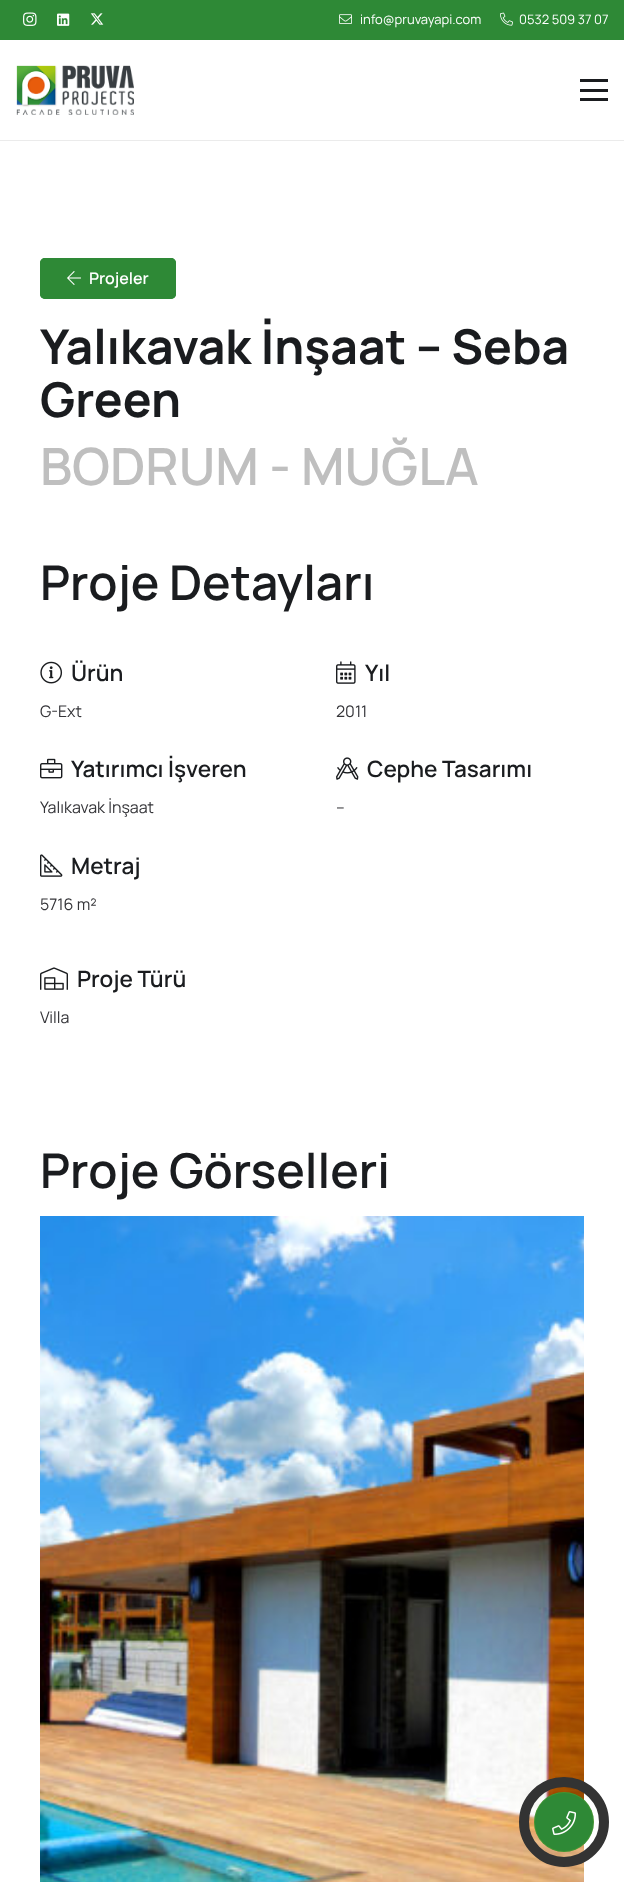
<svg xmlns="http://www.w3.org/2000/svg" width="624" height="1882">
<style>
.a{font:200 13px 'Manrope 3';fill:#fff}
.b{font:200 16px 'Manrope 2';fill:#fff}
.c{font:200 48px Manrope;fill:#1a1c1f}
.d{font:200 51.25px 'Manrope 2';fill:#bfbfbf}
.e{font:200 48px 'Manrope 2';fill:#1a1c1f}
.f{font:200 22.5px 'Manrope 2';fill:#1a1c1f}
.g{font:200 16px 'Manrope 3';fill:#343438}
</style>
<rect width="100%" height="100%" fill="#fff"/>
<path fill="#2e8936" d="M0 0h624v40H0z"/>
<image href="1.png" x="23" y="12" width="14" height="14"/>
<image href="2.png" x="57" y="13" width="13" height="13"/>
<image href="3.png" x="90" y="13" width="14" height="12"/>
<image href="4.png" x="339" y="14" width="13" height="10"/>
<image href="5.png" x="500" y="12" width="13" height="14"/>
<path fill="#ebebeb" d="M0 140h624v1H0z"/>
<image href="6.png" x="16" y="65" width="118" height="50"/>
<path fill="#1a1c1f" d="M580 89h28v3H580z"/>
<path fill="#1a1c1f" d="M580 79h28v3H580z"/>
<path fill="#1a1c1f" d="M580 98h28v3H580z"/>
<rect fill="#2e8936" x="40" y="258" width="136" height="41" rx="5"/>
<image href="7.png" x="67" y="271" width="14" height="14"/>
<rect fill="none" stroke="#2e8936" stroke-width="2" x="41" y="259" width="134" height="39" rx="4"/>
<image href="8.png" x="40" y="661" width="23" height="23"/>
<image href="9.png" x="336" y="661" width="20" height="23"/>
<image href="10.png" x="40" y="758" width="23" height="21"/>
<image href="11.png" x="336" y="757" width="23" height="23"/>
<image href="12.png" x="40" y="854" width="23" height="23"/>
<image href="13.png" x="40" y="967" width="28" height="23"/>
<image href="14.png" x="40" y="1216" width="544" height="666"/>
<circle fill="#2e8936" cx="564" cy="1822" r="30"/>
<circle fill="none" stroke="#97c12133" cx="564" cy="1822" r="29.5"/>
<circle fill="none" stroke="#333" stroke-width="10" cx="564" cy="1822" r="40"/>
<image href="15.png" x="552" y="1811" width="25" height="24"/>
<text class="a" x="360" y="24">info@pruvayapi.com</text>
<text class="a" x="519" y="24">0532 509 37 07</text>
<text class="b" x="89" y="284">Projeler</text>
<text class="c" x="40" y="364">Yalıkavak İnşaat – Seba</text>
<text class="c" x="40" y="417">Green</text>
<text class="d" x="40" y="485">BODRUM - MUĞLA</text>
<text class="e" x="40" y="600">Proje Detayları</text>
<text class="f" x="71" y="681">Ürün</text>
<text class="g" x="40" y="717">G-Ext</text>
<text class="f" x="365" y="681">Yıl</text>
<text class="g" x="336" y="717">2011</text>
<text class="f" x="71" y="777">Yatırımcı İşveren</text>
<text class="g" x="40" y="813">Yalıkavak İnşaat</text>
<text class="f" x="367" y="777">Cephe Tasarımı</text>
<text class="g" x="336" y="813">–</text>
<text class="f" x="71" y="874">Metraj</text>
<text class="g" x="40" y="910">5716 m²</text>
<text class="f" x="77" y="987">Proje Türü</text>
<text class="g" x="40" y="1023">Villa</text>
<text class="e" x="40" y="1188">Proje Görselleri</text>
</svg>
